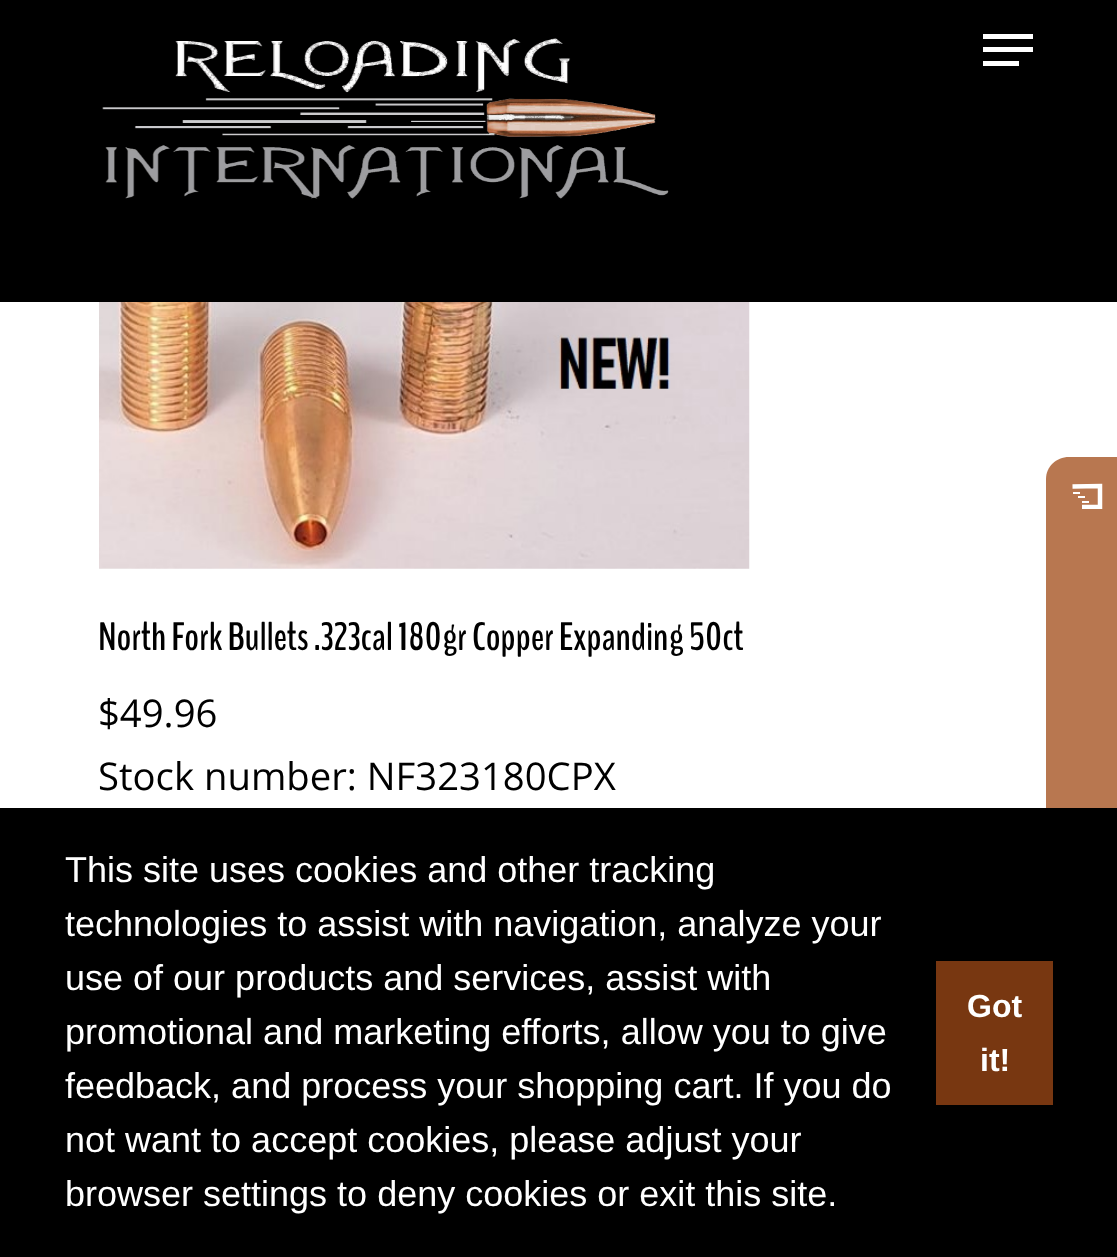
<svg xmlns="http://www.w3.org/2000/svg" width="1117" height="1257">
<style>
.a{font:bold 39.6px BenchNine;fill:#000}
.b{font:38.25px Open Sans;fill:#000}
.c{font:36px Liberation Sans;fill:#fff}
.d{font:bold 32px Liberation Sans;fill:#fff}
</style>
<defs>
<clipPath id="clip1"><path d="M1071 482h32v27H1071z"/></clipPath>
</defs>
<rect width="100%" height="100%" fill="#fff"/>
<path fill="#000" d="M0 0h1117v302H0z"/>
<image href="1.png" x="102" y="38" width="567" height="161"/>
<path fill="#fff" d="M983 34h50v5H983z"/>
<path fill="#fff" d="M983 61h36v5H983z"/>
<path fill="#fff" d="M983 47h50v5H983z"/>
<image href="2.png" x="99" y="302" width="651" height="267"/>
<path fill="#b87750" d="M1046 870v-391c0-12 10-22 23-22h46c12 0 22 10 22 22v391c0 12-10 22-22 22h-46c-13 0-23-10-23-22z"/>
<g clip-path="url(#clip1)">
<path fill="none" stroke="#fff" stroke-width="4.5" d="M1072.5 486.5l27.5-.5v21h-18"/>
</g>
<path fill="#fff" d="M1073 492h7v2H1073z"/>
<path fill="#fff" d="M1078 496h7v2H1078z"/>
<path fill="#fff" d="M1082 501h7v2H1082z"/>
<path fill="#000" d="M0 808h1117v449H0z"/>
<path fill="#783711" d="M936 961h117v144H936z"/>
<text class="a" x="98" y="650">North Fork Bullets .323cal 180gr Copper Expanding 50ct</text>
<text class="b" x="98" y="727">$49.96</text>
<text class="b" x="98" y="790">Stock number: NF323180CPX</text>
<text class="c" x="65" y="882">This site uses cookies and other tracking</text>
<text class="c" x="65" y="936">technologies to assist with navigation, analyze your</text>
<text class="c" x="65" y="990">use of our products and services, assist with</text>
<text class="c" x="65" y="1044">promotional and marketing efforts, allow you to give</text>
<text class="c" x="65" y="1098">feedback, and process your shopping cart. If you do</text>
<text class="c" x="65" y="1152">not want to accept cookies, please adjust your</text>
<text class="c" x="65" y="1206">browser settings to deny cookies or exit this site.</text>
<text class="d" x="967" y="1017">Got</text>
<text class="d" x="980" y="1071">it!</text>
</svg>
